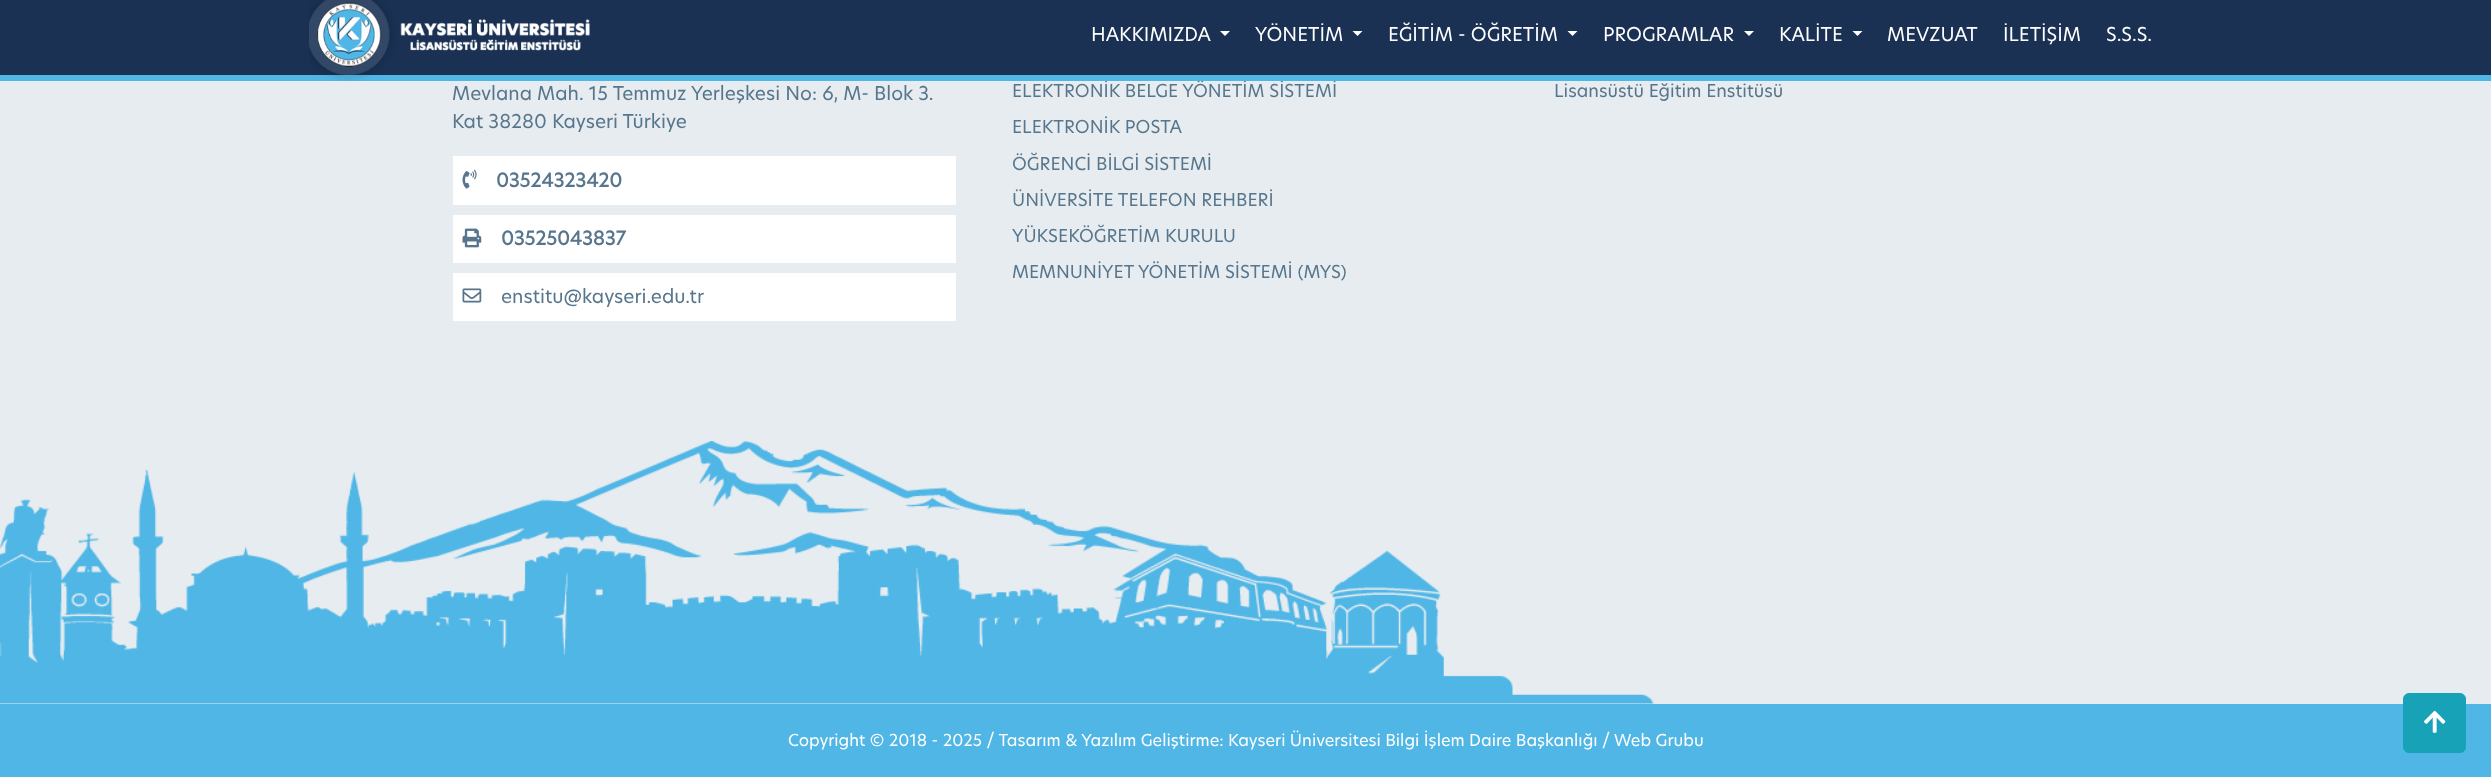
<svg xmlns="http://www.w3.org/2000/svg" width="2491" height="777">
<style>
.a{font:18.75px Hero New;fill:#fff}
.b{font:18.75px Hero New;fill:#57758c}
.c{font:bold 18.75px Hero New;fill:#57758c}
.d{font:17.5px Hero New;fill:#57758c}
.e{font:16.25px Hero New;fill:#fff}
</style>
<rect width="100%" height="100%" fill="#e6ecef"/>
<path fill="#1a3154" d="M0 0h2491v75H0z"/>
<path fill="#fff" d="M1220 31h10l-5 5z"/>
<path fill="#fff" d="M1352.5 31h10l-5 5z"/>
<path fill="#fff" d="M1567.5 31h10l-5 5z"/>
<path fill="#fff" d="M1744 31h10l-5 5z"/>
<path fill="#fff" d="M1852.5 31h10l-5 5z"/>
<path fill="#fff" d="M453 156h503v49H453z"/>
<image href="2.png" x="462" y="169" width="15" height="20"/>
<path fill="#fff" d="M453 215h503v48H453z"/>
<image href="3.png" x="462" y="228" width="20" height="20"/>
<path fill="#fff" d="M453 273h503v48H453z"/>
<image href="4.png" x="462" y="288" width="20" height="15"/>
<image href="5.png" x="0" y="441" width="1654" height="263"/>
<path fill="#50b6e6" d="M0 704h2491v73H0z"/>
<rect fill="#17a2b8" stroke="#17a2b8" x="2403.5" y="693.5" width="62" height="59" rx="5.5"/>
<image href="6.png" x="2424" y="711" width="22" height="22"/>
<text class="a" x="1091" y="41">HAKKIMIZDA</text>
<text class="a" x="1255" y="41">YÖNETİM</text>
<text class="a" x="1388" y="41">EĞİTİM - ÖĞRETİM</text>
<text class="a" x="1603" y="41">PROGRAMLAR</text>
<text class="a" x="1779" y="41">KALİTE</text>
<text class="a" x="1887" y="41">MEVZUAT</text>
<text class="a" x="2003" y="41">İLETİŞİM</text>
<text class="a" x="2106" y="41">S.S.S.</text>
<text class="b" x="452" y="100">Mevlana Mah. 15 Temmuz Yerleşkesi No: 6, M- Blok 3.</text>
<text class="b" x="452" y="128">Kat 38280 Kayseri Türkiye</text>
<text class="c" x="496" y="187">03524323420</text>
<text class="c" x="501" y="245">03525043837</text>
<text class="b" x="501" y="303">enstitu@kayseri.edu.tr</text>
<text class="d" x="1012" y="97">ELEKTRONİK BELGE YÖNETİM SİSTEMİ</text>
<path fill="#50b6e6" d="M0 75h2491v6H0z"/>
<image href="1.png" x="309" y="0" width="281" height="81"/>
<text class="d" x="1012" y="133">ELEKTRONİK POSTA</text>
<text class="d" x="1012" y="170">ÖĞRENCİ BİLGİ SİSTEMİ</text>
<text class="d" x="1012" y="206">ÜNİVERSİTE TELEFON REHBERİ</text>
<text class="d" x="1012" y="242">YÜKSEKÖĞRETİM KURULU</text>
<text class="d" x="1012" y="278">MEMNUNİYET YÖNETİM SİSTEMİ (MYS)</text>
<text class="d" x="1554" y="97">Lisansüstü Eğitim Enstitüsü</text>
<text class="e" x="788" y="746">Copyright © 2018 - 2025 / Tasarım &amp; Yazılım Geliştirme: Kayseri Üniversitesi Bilgi İşlem Daire Başkanlığı / Web Grubu</text>
</svg>
